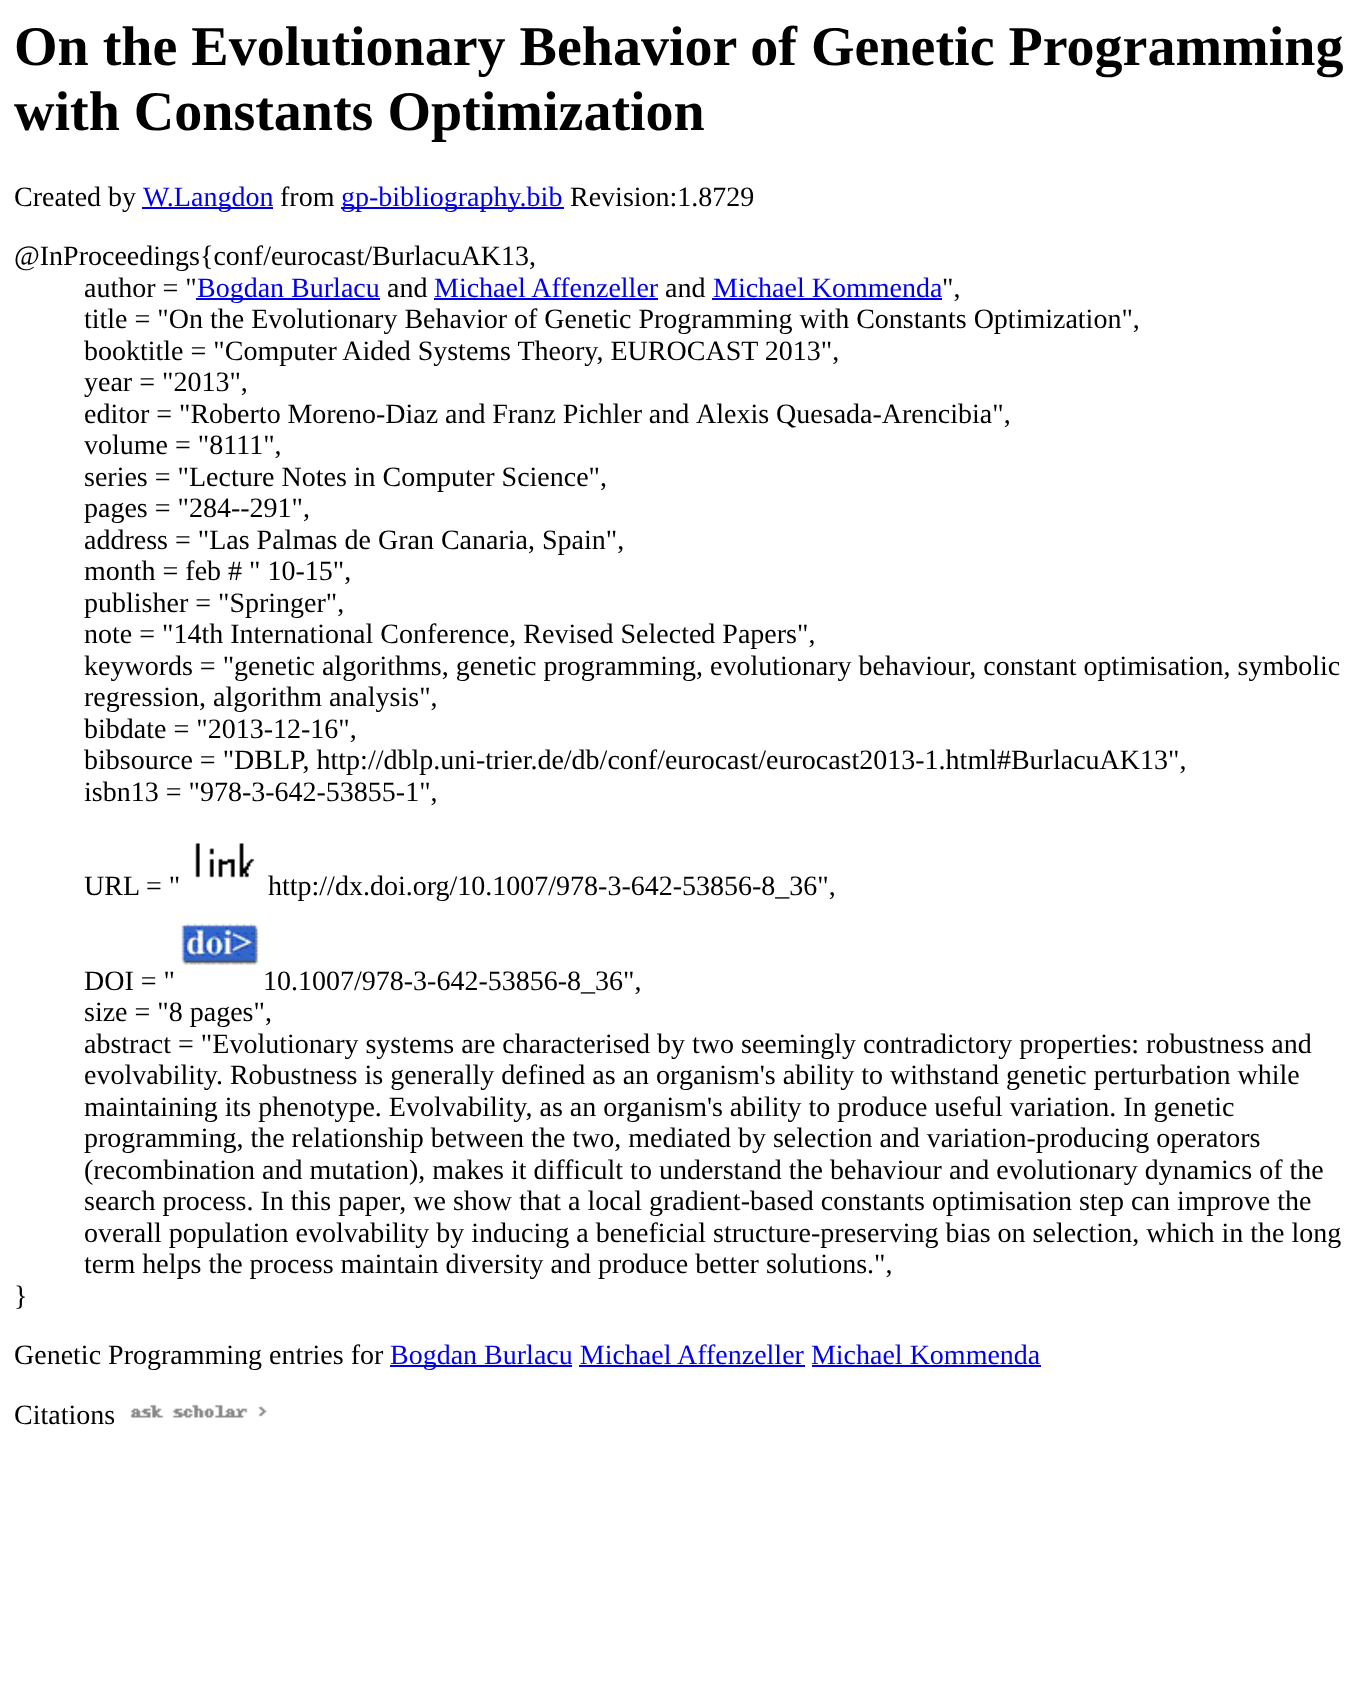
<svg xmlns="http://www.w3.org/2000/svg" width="1370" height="1700">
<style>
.a{font:bold 56px Liberation Serif;fill:#000}
.b{font:28px Liberation Serif;fill:#000}
.c{font:28px Liberation Serif;fill:#00e}
</style>
<rect width="100%" height="100%" fill="#fff"/>
<path fill="#00e" d="M142 207h131v2H142z"/>
<path fill="#00e" d="M341 207h223v2H341z"/>
<path fill="#00e" d="M196 298h184v2H196z"/>
<path fill="#00e" d="M434 298h224v2H434z"/>
<path fill="#00e" d="M712 298h230v2H712z"/>
<image href="1.png" x="195" y="843" width="60" height="35"/>
<image href="2.png" x="181" y="923" width="79" height="42"/>
<path fill="#00e" d="M390 1365h182v2H390z"/>
<path fill="#00e" d="M579 1365h226v2H579z"/>
<path fill="#00e" d="M812 1365h229v2H812z"/>
<image href="3.png" x="130" y="1404" width="137" height="14"/>
<text class="a" x="14" y="65">On the Evolutionary Behavior of Genetic Programming</text>
<text class="a" x="14" y="130">with Constants Optimization</text>
<text class="b" x="14" y="206">Created by</text>
<text class="c" x="143" y="206">W.Langdon</text>
<text class="b" x="280" y="206">from</text>
<text class="c" x="341" y="206">gp-bibliography.bib</text>
<text class="b" x="570" y="206">Revision:1.8729</text>
<text class="b" x="14" y="265">@InProceedings{conf/eurocast/BurlacuAK13,</text>
<text class="b" x="84" y="297">author = "</text>
<text class="c" x="197" y="297">Bogdan Burlacu</text>
<text class="b" x="387" y="297">and</text>
<text class="c" x="434" y="297">Michael Affenzeller</text>
<text class="b" x="665" y="297">and</text>
<text class="c" x="713" y="297">Michael Kommenda</text>
<text class="b" x="942" y="297">",</text>
<text class="b" x="84" y="328">title = "On the Evolutionary Behavior of Genetic Programming with Constants Optimization",</text>
<text class="b" x="84" y="360">booktitle = "Computer Aided Systems Theory, EUROCAST 2013",</text>
<text class="b" x="84" y="391">year = "2013",</text>
<text class="b" x="84" y="423">editor =</text>
<text class="b" x="179" y="423" word-spacing="-0.25">"Roberto Moreno-Diaz and Franz Pichler and</text>
<text class="b" x="696" y="423">Alexis Quesada-Arencibia",</text>
<text class="b" x="84" y="454">volume = "8111",</text>
<text class="b" x="84" y="486">series = "Lecture Notes in Computer Science",</text>
<text class="b" x="84" y="517">pages = "284--291",</text>
<text class="b" x="84" y="549">address = "Las Palmas de Gran Canaria, Spain",</text>
<text class="b" x="84" y="580">month = feb # " 10-15",</text>
<text class="b" x="84" y="612">publisher = "Springer",</text>
<text class="b" x="84" y="643">note = "14th International Conference, Revised Selected Papers",</text>
<text class="b" x="84" y="675">keywords = "genetic algorithms, genetic programming, evolutionary behaviour, constant optimisation, symbolic</text>
<text class="b" x="84" y="706">regression, algorithm analysis",</text>
<text class="b" x="84" y="738">bibdate = "2013-12-16",</text>
<text class="b" x="84" y="769">bibsource = "DBLP, http://dblp.uni-trier.de/db/conf/eurocast/eurocast2013-1.html#BurlacuAK13",</text>
<text class="b" x="84" y="801">isbn13 = "978-3-642-53855-1",</text>
<text class="b" x="84" y="895">URL = "</text>
<text class="b" x="268" y="895">http://dx.doi.org/10.1007/978-3-642-53856-8_36",</text>
<text class="b" x="84" y="990">DOI = "</text>
<text class="b" x="263" y="990">10.1007/978-3-642-53856-8_36",</text>
<text class="b" x="84" y="1021">size = "8 pages",</text>
<text class="b" x="84" y="1053">abstract = "Evolutionary systems are characterised by two seemingly contradictory properties: robustness and</text>
<text class="b" x="84" y="1084">evolvability. Robustness is generally defined as an organism's ability to withstand genetic perturbation while</text>
<text class="b" x="84" y="1116">maintaining its phenotype. Evolvability, as an organism's ability to produce useful variation. In genetic</text>
<text class="b" x="84" y="1147">programming, the relationship between the two, mediated by selection and variation-producing operators</text>
<text class="b" x="84" y="1179">(recombination and mutation), makes it difficult to understand the behaviour and evolutionary dynamics of the</text>
<text class="b" x="84" y="1210">search process. In this paper, we show that a local gradient-based constants optimisation step can improve the</text>
<text class="b" x="84" y="1242">overall population evolvability by inducing a beneficial structure-preserving bias on selection, which in the long</text>
<text class="b" x="84" y="1273">term helps the process maintain diversity and produce better solutions.",</text>
<text class="b" x="14" y="1305">}</text>
<text class="b" x="14" y="1364">Genetic Programming entries for</text>
<text class="c" x="390" y="1364">Bogdan Burlacu Michael Affenzeller Michael Kommenda</text>
<text class="b" x="14" y="1424">Citations</text>
</svg>
